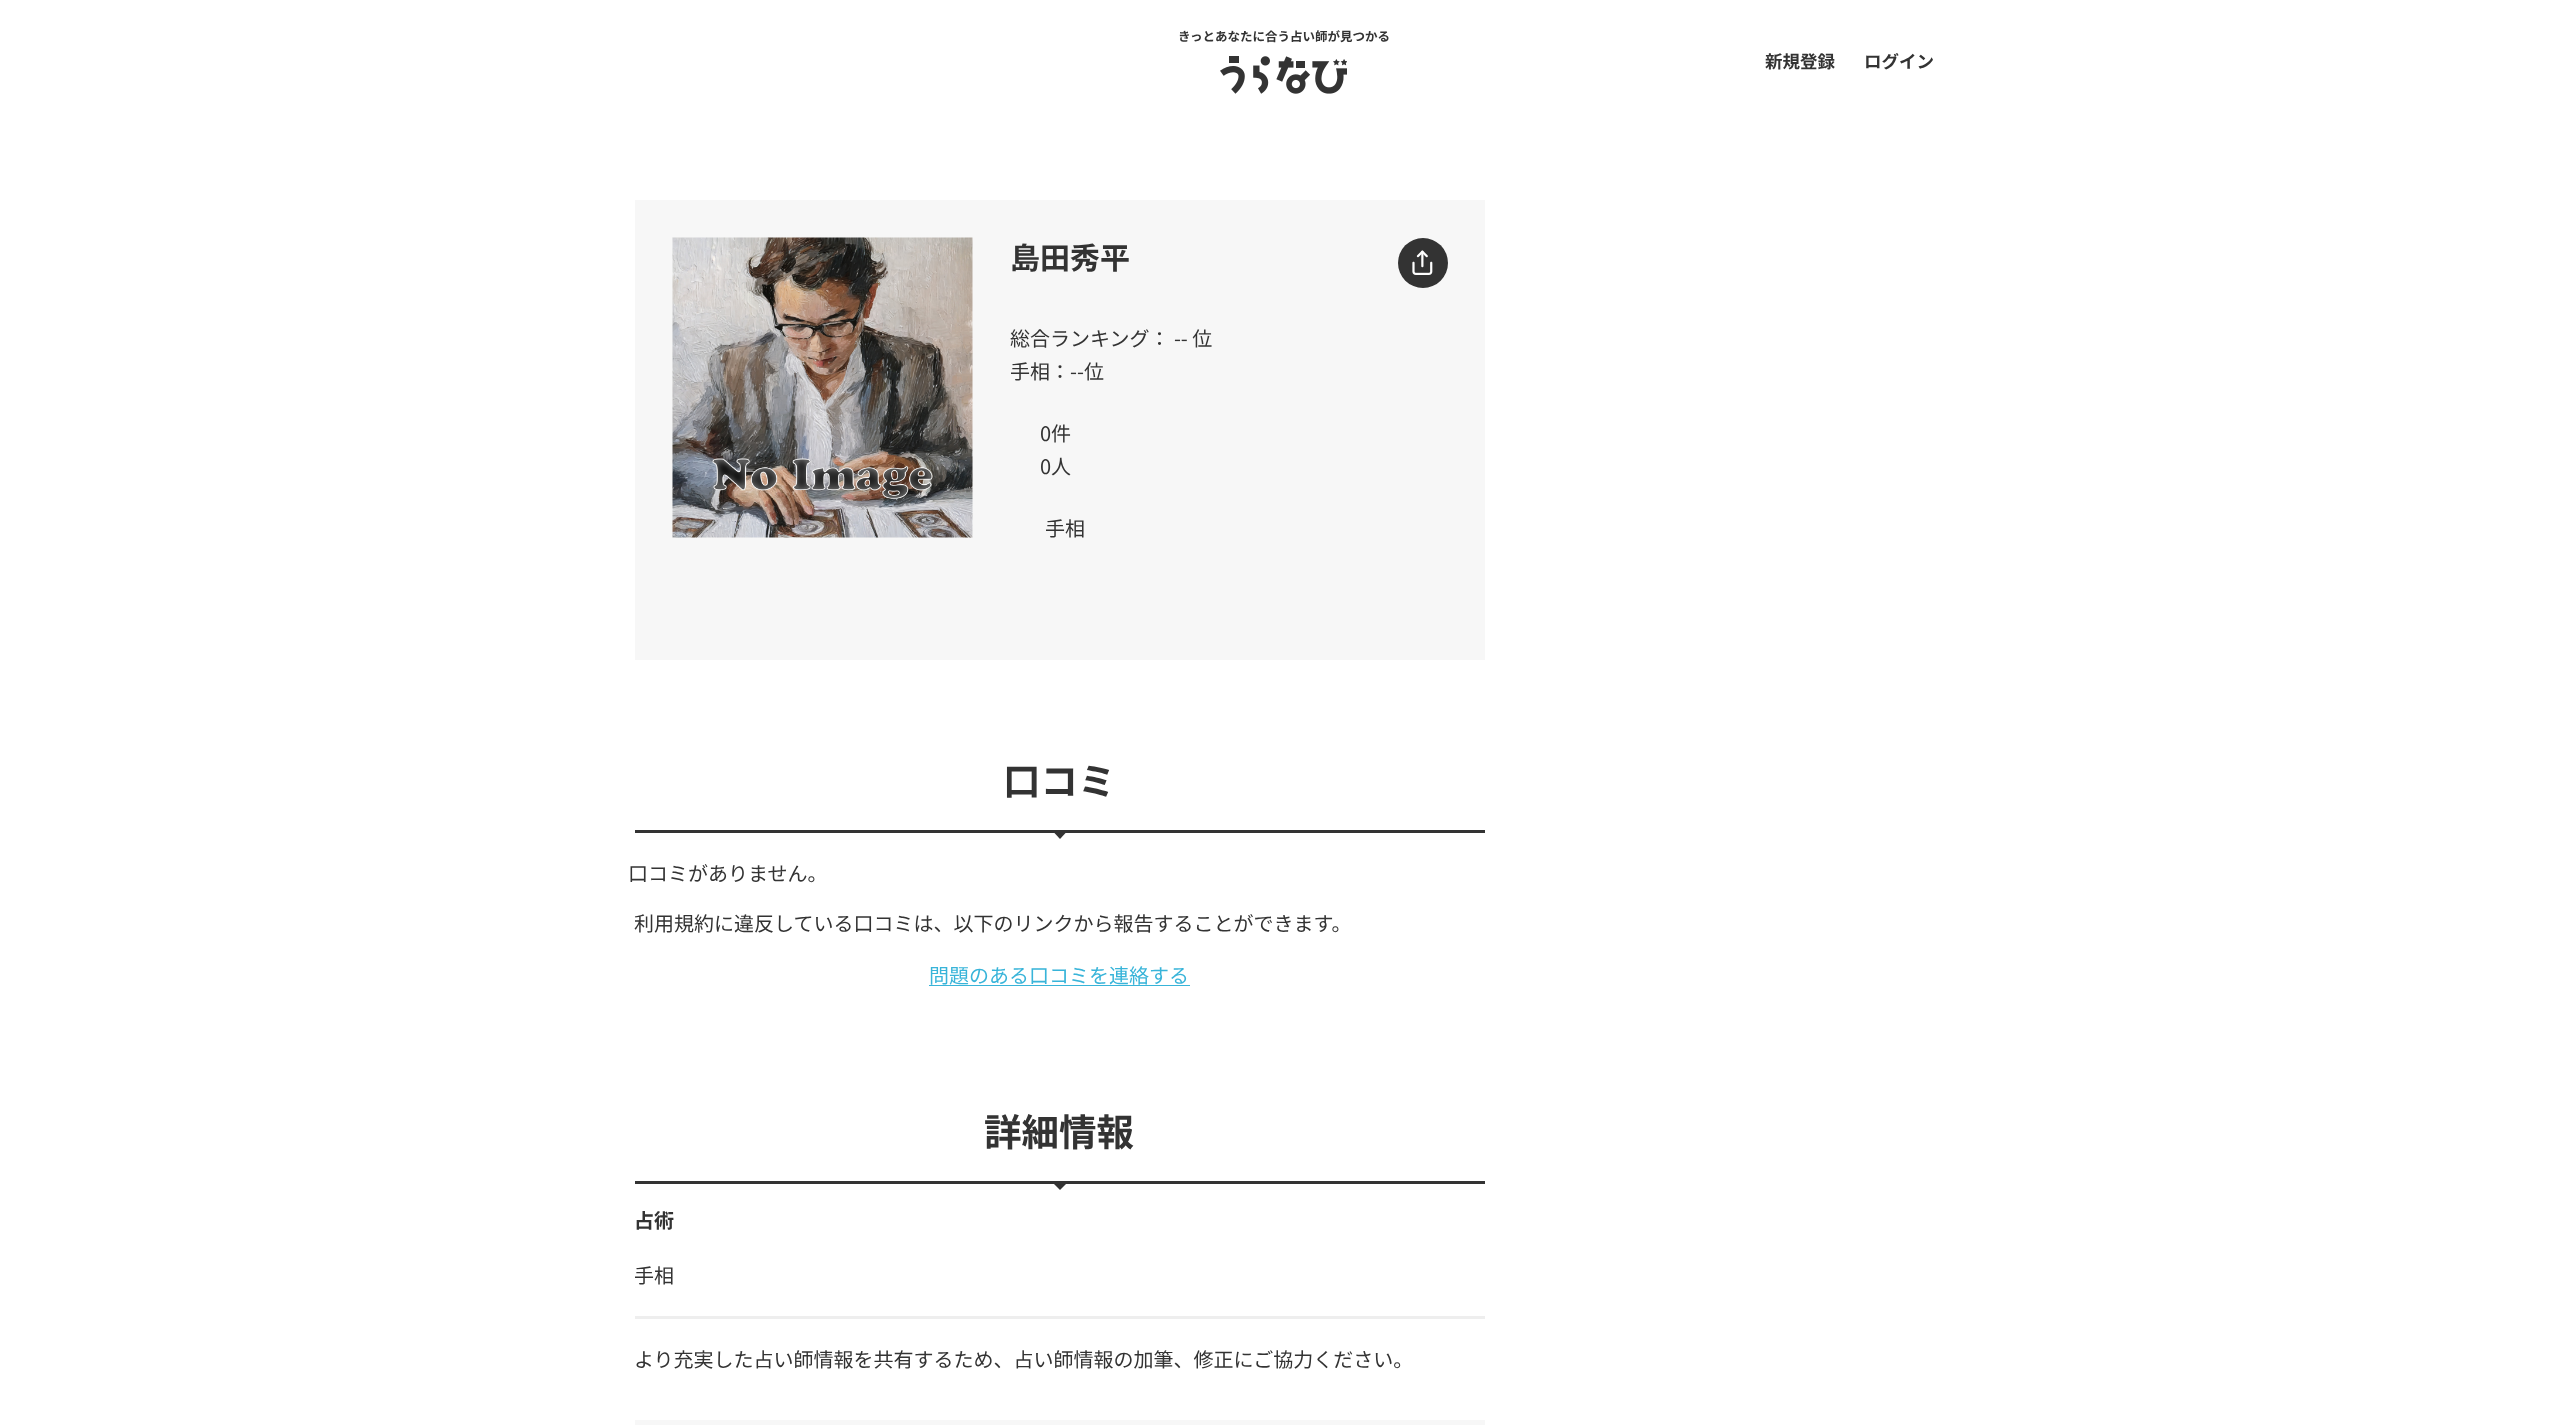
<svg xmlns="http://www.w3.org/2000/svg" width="2568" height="1425">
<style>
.a{font:bold 12.5px Noto Sans JP;fill:#333}
.b{font:bold 17.5px Noto Sans JP;fill:#333}
.c{font:bold 30px Noto Sans JP;fill:#333}
.d{font:20px Noto Sans JP;fill:#333}
.e{font:bold 37.5px Noto Sans JP;fill:#333}
.f{font:20px Noto Sans JP;fill:#38b4d9}
.g{font:bold 20px Noto Sans JP;fill:#333}
</style>
<rect width="100%" height="100%" fill="#fff"/>
<image href="1.png" x="1220" y="56" width="127" height="38"/>
<path fill="#f7f7f7" d="M635 200h850v460H635z"/>
<image href="2.png" x="672" y="237" width="301" height="301"/>
<circle fill="#333" cx="1423" cy="263" r="25"/>
<image href="3.png" x="1412" y="250" width="21" height="25"/>
<path fill="#333" d="M635 830h850v3H635z"/>
<path fill="#333" d="M1054 832.5h12l-6 6.5z"/>
<path fill="#38b4d9" d="M929 985h261v1H929z"/>
<path fill="#333" d="M635 1181h850v3H635z"/>
<path fill="#333" d="M1054 1184h12l-6 6z"/>
<path fill="#eee" d="M635 1316h850v3H635z"/>
<path fill="#f7f7f7" d="M635 1420h850v5H635z"/>
<text class="a" x="1178" y="41">きっとあなたに合う占い師が見つかる</text>
<text class="b" x="1765" y="68">新規登録</text>
<text class="b" x="1864" y="68">ログイン</text>
<text class="c" x="1010" y="269">島田秀平</text>
<text class="d" x="1010" y="346">総合ランキング： -- 位</text>
<text class="d" x="1010" y="379">手相：--位</text>
<text class="d" x="1040" y="441">0件</text>
<text class="d" x="1040" y="474">0人</text>
<text class="d" x="1045" y="536">手相</text>
<text class="e" x="1003" y="795">口コミ</text>
<text class="d" x="628" y="881">口コミがありません。</text>
<text class="d" x="634" y="931">利用規約に違反している口コミは、以下のリンクから報告することができます。</text>
<text class="f" x="929" y="983">問題のある口コミを連絡する</text>
<text class="e" x="984" y="1146">詳細情報</text>
<text class="g" x="634" y="1228">占術</text>
<text class="d" x="634" y="1283">手相</text>
<text class="d" x="634" y="1367">より充実した占い師情報を共有するため、占い師情報の加筆、修正にご協力ください。</text>
</svg>
